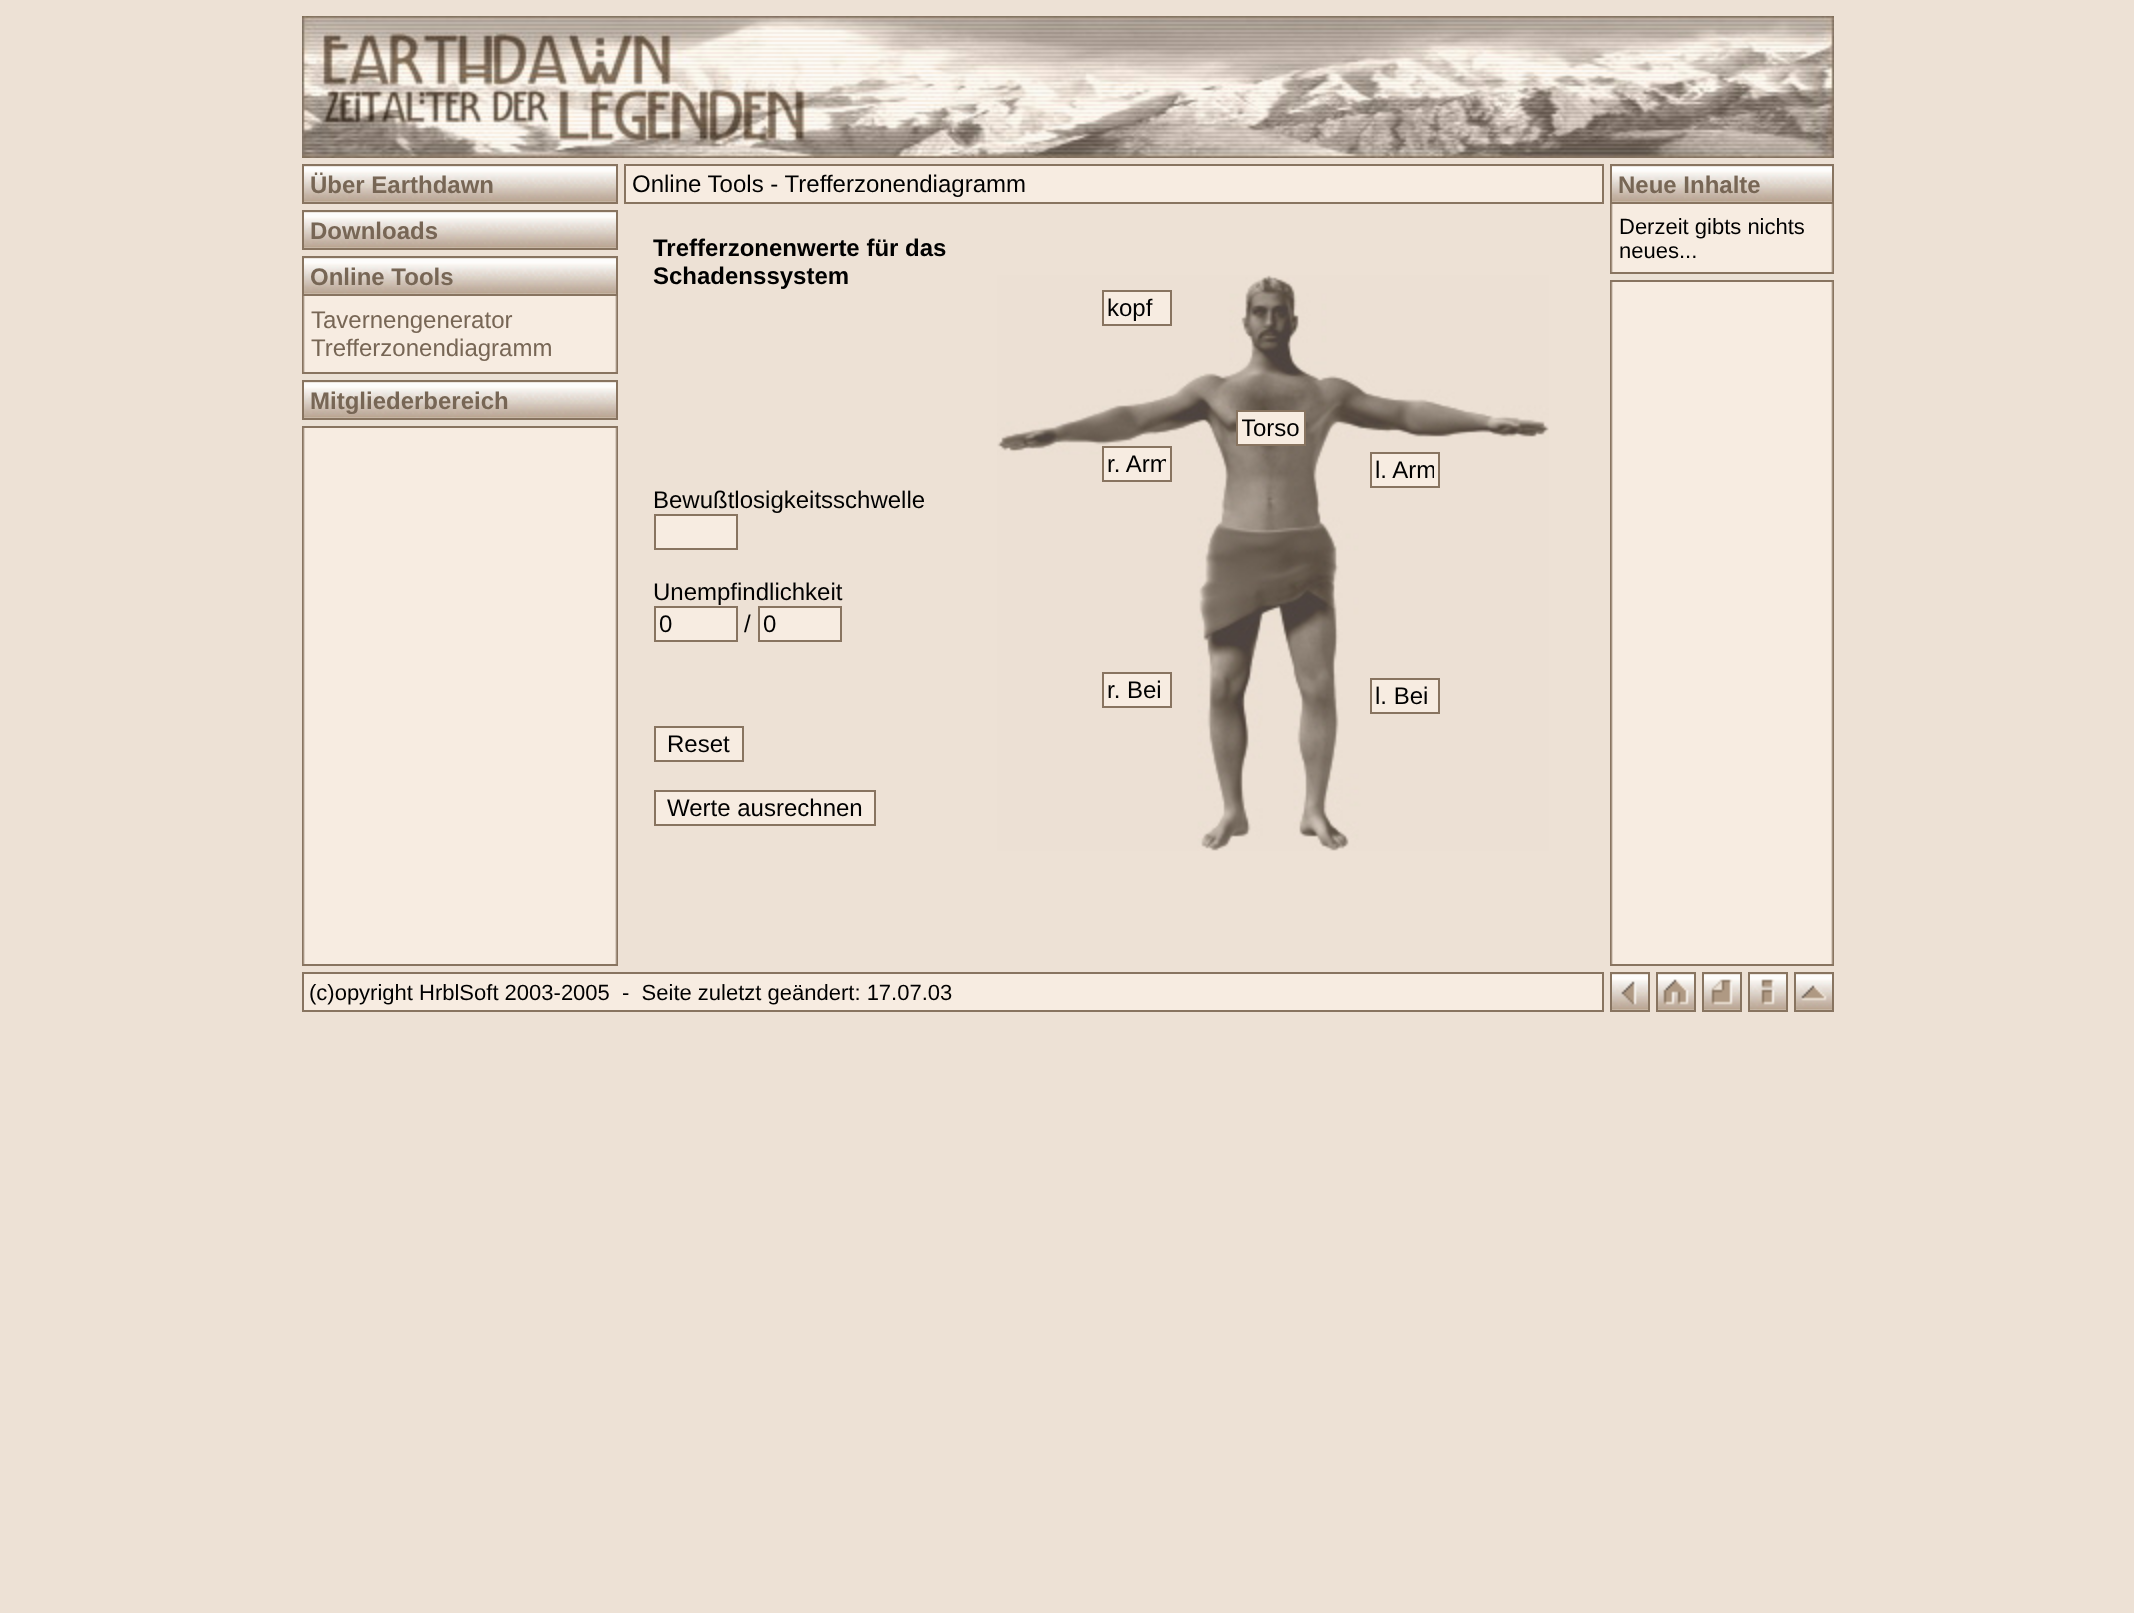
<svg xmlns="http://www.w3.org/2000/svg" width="2134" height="1613">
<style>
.a{font:bold 24px Liberation Sans;fill:#765}
.b{font:24px Liberation Sans;fill:#765}
.c{font:24px Liberation Sans;fill:#000}
.d{font:bold 24px Liberation Sans;fill:#000}
.e{font:22px Liberation Sans;fill:#000}
</style>
<defs>
<clipPath id="clip1"><path d="M1108 450h58v28H1108z"/></clipPath>
<clipPath id="clip2"><path d="M1242 414h58v28H1242z"/></clipPath>
<clipPath id="clip3"><path d="M1376 456h58v28H1376z"/></clipPath>
</defs>
<rect width="100%" height="100%" fill="#ede1d5"/>
<image href="1.png" x="302" y="16" width="1532" height="142"/>
<image href="2.png" x="302" y="296" width="316" height="668"/>
<image href="3.png" x="304" y="166" width="312" height="36"/>
<path fill="none" stroke="#887460" stroke-width="2" d="M303 165h314v38H303z"/>
<image href="3.png" x="304" y="212" width="312" height="36"/>
<path fill="none" stroke="#887460" stroke-width="2" d="M303 211h314v38H303z"/>
<image href="3.png" x="304" y="258" width="312" height="36"/>
<path fill="none" stroke="#887460" stroke-width="2" d="M303 257h314v38H303z"/>
<path fill="#887460" d="M302 372h316v2H302z"/>
<path fill="#ebe1d5" d="M302 374h316v6H302z"/>
<image href="3.png" x="304" y="382" width="312" height="36"/>
<path fill="none" stroke="#887460" stroke-width="2" d="M303 381h314v38H303z"/>
<path fill="#ebe1d5" d="M302 420h316v6H302z"/>
<path fill="#887460" d="M302 426h316v2H302z"/>
<path fill="#f7ece1" stroke="#887460" stroke-width="2" d="M625 165h978v38H625z"/>
<path fill="#f7ece1" stroke="#887460" stroke-width="2" d="M655 515h82v34H655z"/>
<path fill="#f7ece1" stroke="#887460" stroke-width="2" d="M655 607h82v34H655z"/>
<path fill="#f7ece1" stroke="#887460" stroke-width="2" d="M759 607h82v34H759z"/>
<path fill="#f7ece1" stroke="#887460" stroke-width="2" d="M655 727h88v34H655z"/>
<path fill="#f7ece1" stroke="#887460" stroke-width="2" d="M655 791h220v34H655z"/>
<image href="4.png" x="997" y="275" width="552" height="576"/>
<path fill="#f7ece1" stroke="#887460" stroke-width="2" d="M1103 291h68v34H1103z"/>
<path fill="#f7ece1" stroke="#887460" stroke-width="2" d="M1103 447h68v34H1103z"/>
<path fill="#f7ece1" stroke="#887460" stroke-width="2" d="M1103 673h68v34H1103z"/>
<path fill="#f7ece1" stroke="#887460" stroke-width="2" d="M1237 411h68v34H1237z"/>
<path fill="#f7ece1" stroke="#887460" stroke-width="2" d="M1371 453h68v34H1371z"/>
<path fill="#f7ece1" stroke="#887460" stroke-width="2" d="M1371 679h68v34H1371z"/>
<image href="5.png" x="1610" y="204" width="224" height="760"/>
<image href="6.png" x="1612" y="166" width="220" height="36"/>
<path fill="none" stroke="#887460" stroke-width="2" d="M1611 165h222v38H1611z"/>
<path fill="#887460" d="M1610 272h224v2H1610z"/>
<path fill="#ebe1d5" d="M1610 274h224v6H1610z"/>
<path fill="#887460" d="M1610 280h224v2H1610z"/>
<path fill="#887460" d="M302 964h316v2H302z"/>
<path fill="#887460" d="M1610 964h224v2H1610z"/>
<path fill="#f7ece1" stroke="#887460" stroke-width="2" d="M303 973h1300v38H303z"/>
<image href="7.png" x="1612" y="974" width="36" height="36"/>
<path fill="none" stroke="#887460" stroke-width="2" d="M1611 973h38v38H1611z"/>
<image href="8.png" x="1621" y="981" width="16" height="24"/>
<image href="9.png" x="1658" y="974" width="36" height="36"/>
<path fill="none" stroke="#887460" stroke-width="2" d="M1657 973h38v38H1657z"/>
<image href="10.png" x="1663" y="979" width="26" height="26"/>
<image href="7.png" x="1704" y="974" width="36" height="36"/>
<path fill="none" stroke="#887460" stroke-width="2" d="M1703 973h38v38H1703z"/>
<image href="11.png" x="1711" y="979" width="22" height="26"/>
<image href="12.png" x="1750" y="974" width="36" height="36"/>
<path fill="none" stroke="#887460" stroke-width="2" d="M1749 973h38v38H1749z"/>
<image href="13.png" x="1761" y="979" width="14" height="26"/>
<image href="7.png" x="1796" y="974" width="36" height="36"/>
<path fill="none" stroke="#887460" stroke-width="2" d="M1795 973h38v38H1795z"/>
<image href="14.png" x="1801" y="985" width="26" height="16"/>
<text class="a" x="310" y="193">Über Earthdawn</text>
<text class="a" x="310" y="239">Downloads</text>
<text class="a" x="310" y="285">Online Tools</text>
<text class="b" x="311" y="328">Tavernengenerator</text>
<text class="b" x="311" y="356">Trefferzonendiagramm</text>
<text class="a" x="310" y="409">Mitgliederbereich</text>
<text class="c" x="632" y="192">Online Tools - Trefferzonendiagramm</text>
<text class="d" x="653" y="256">Trefferzonenwerte für das</text>
<text class="d" x="653" y="284">Schadenssystem</text>
<text class="c" x="653" y="508">Bewußtlosigkeitsschwelle</text>
<text class="c" x="653" y="600">Unempfindlichkeit</text>
<text class="c" x="659" y="632">0</text>
<text class="c" x="744" y="632">/</text>
<text class="c" x="763" y="632">0</text>
<text class="c" x="667" y="752">Reset</text>
<text class="c" x="667" y="816">Werte ausrechnen</text>
<text class="c" x="1107" y="316">kopf</text>
<g clip-path="url(#clip1)">
<text class="c" x="1107" y="472">r. Arm</text>
</g>
<text class="c" x="1107" y="698">r. Bei</text>
<g clip-path="url(#clip2)">
<text class="c" x="1241" y="436">Torso</text>
</g>
<g clip-path="url(#clip3)">
<text class="c" x="1375" y="478">l. Arm</text>
</g>
<text class="c" x="1375" y="704">l. Bei</text>
<text class="a" x="1618" y="193">Neue Inhalte</text>
<text class="e" x="1619" y="234">Derzeit gibts nichts</text>
<text class="e" x="1619" y="258">neues...</text>
<text class="e" xml:space="preserve" x="309" y="1000">(c)opyright HrblSoft 2003-2005  -  Seite zuletzt geändert: 17.07.03</text>
</svg>
